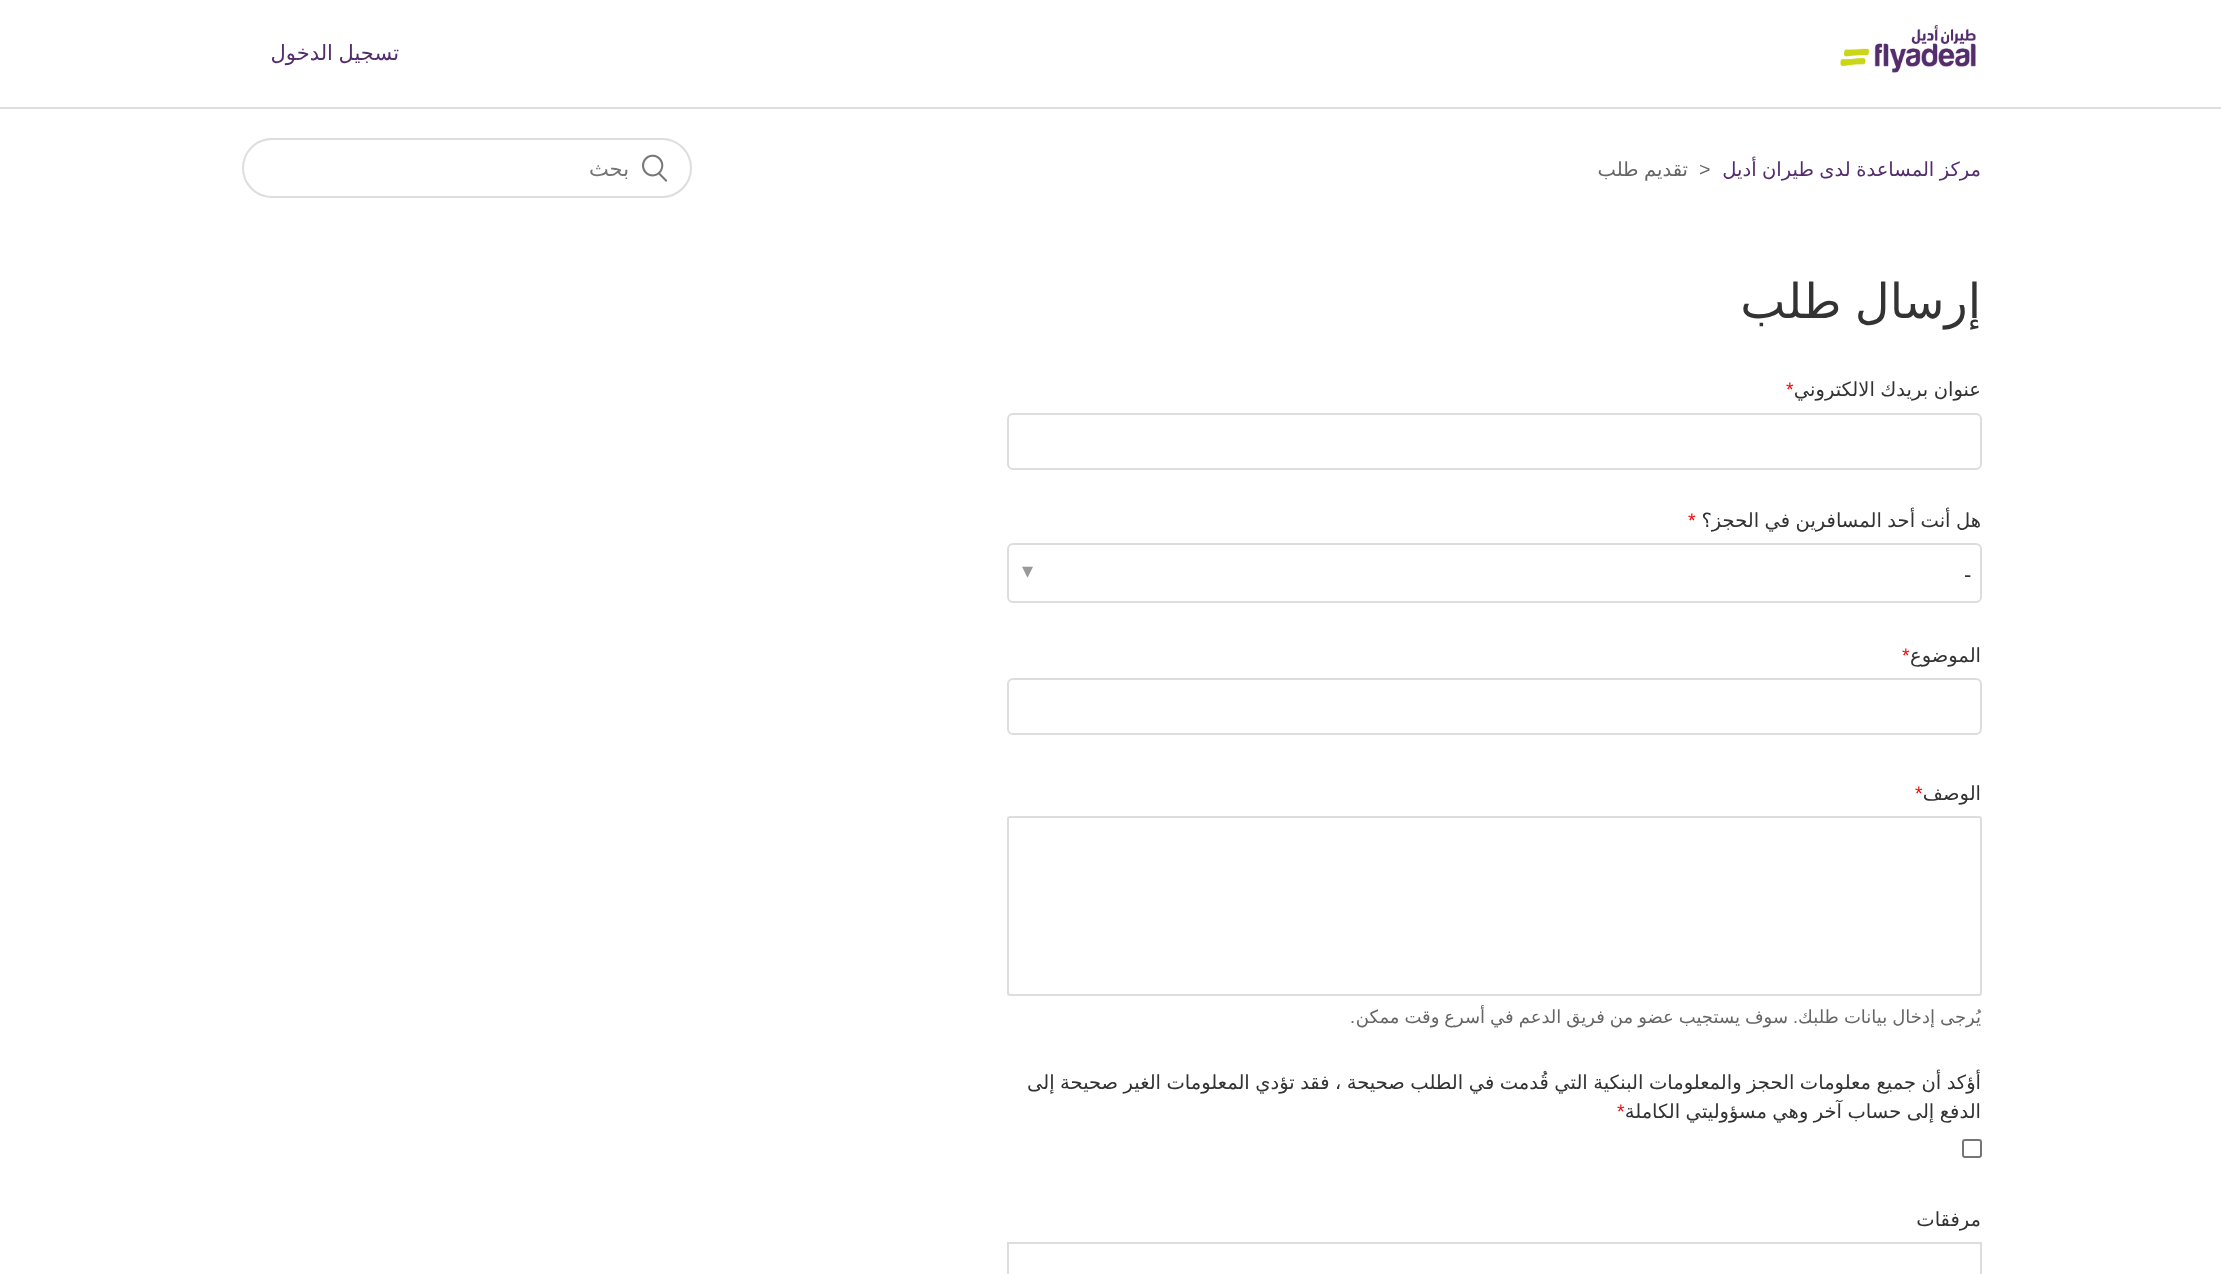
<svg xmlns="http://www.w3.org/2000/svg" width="2221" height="1274">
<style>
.a{font:21px DejaVu Sans;direction:rtl;fill:#532d6d}
.b{font:19.5px DejaVu Sans;direction:rtl;fill:#532d6d}
.c{font:19.5px Liberation Sans;fill:#666}
.d{font:19.5px DejaVu Sans;direction:rtl;fill:#666}
.e{font:21px DejaVu Sans;direction:rtl;fill:#757575}
.f{font:48px DejaVu Sans;direction:rtl;fill:#333}
.g{font:19.5px DejaVu Sans;direction:rtl;fill:#333}
.h{font:19.5px Liberation Sans;fill:#f00}
.i{font:22px Liberation Sans;fill:#333}
.j{font:22px DejaVu Sans;fill:#999}
.k{font:18px DejaVu Sans;direction:rtl;fill:#666}
.l{font:18px Liberation Sans;direction:rtl;fill:#666}
</style>
<rect width="100%" height="100%" fill="#fff"/>
<image href="1.png" x="1840" y="25" width="136" height="48"/>
<path fill="#ddd" d="M0 107h2221v2H0z"/>
<rect fill="none" stroke="#ddd" stroke-width="2" x="243" y="139" width="448" height="58" rx="29"/>
<image href="2.png" x="642" y="154" width="26" height="28"/>
<rect fill="none" stroke="#ddd" stroke-width="2" x="1008" y="414" width="973" height="55" rx="5"/>
<rect fill="none" stroke="#ddd" stroke-width="2" x="1008" y="544" width="973" height="58" rx="5"/>
<rect fill="none" stroke="#ddd" stroke-width="2" x="1008" y="679" width="973" height="55" rx="5"/>
<rect fill="none" stroke="#ddd" stroke-width="2" x="1008" y="817" width="973" height="178" rx="2"/>
<rect fill="none" stroke="#767676" stroke-width="2" x="1963" y="1140" width="18" height="17" rx="2"/>
<path fill="none" stroke="#ddd" stroke-width="2" d="M1008 1243h973v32H1008z"/>
<text class="a" x="399" y="60" word-spacing="-1">تسجيل الدخول</text>
<text class="b" x="1981" y="176" word-spacing="-0.75">مركز المساعدة لدى طيران أديل</text>
<text class="c" x="1699" y="176">&gt;</text>
<text class="d" x="1688" y="176" word-spacing="-0.75">تقديم طلب</text>
<text class="e" x="629" y="176">بحث</text>
<text class="f" x="1981" y="318" word-spacing="-2">إرسال طلب</text>
<text class="g" x="1981" y="396" word-spacing="-0.75">عنوان بريدك الالكتروني</text>
<text class="h" x="1786" y="396">*</text>
<text class="g" x="1981" y="527" word-spacing="-0.75">هل أنت أحد المسافرين في الحجز؟</text>
<text class="h" x="1688" y="527">*</text>
<text class="i" x="1964" y="582">-</text>
<text class="j" x="1022" y="578">▾</text>
<text class="g" x="1981" y="662">الموضوع</text>
<text class="h" x="1902" y="662">*</text>
<text class="g" x="1981" y="800">الوصف</text>
<text class="h" x="1915" y="800">*</text>
<text class="k" x="1981" y="1023" word-spacing="-0.75">يُرجى إدخال بيانات طلبك</text>
<text class="l" x="1798" y="1023">.</text>
<text class="k" x="1788" y="1023" word-spacing="-0.75">سوف يستجيب عضو من فريق الدعم في أسرع وقت ممكن</text>
<text class="l" x="1355" y="1023">.</text>
<text class="g" x="1981" y="1089" word-spacing="-0.75">أؤكد أن جميع معلومات الحجز والمعلومات البنكية التي قُدمت في الطلب صحيحة ، فقد تؤدي المعلومات الغير صحيحة إلى</text>
<text class="g" x="1981" y="1118" word-spacing="-0.75">الدفع إلى حساب آخر وهي مسؤوليتي الكاملة</text>
<text class="h" x="1617" y="1118">*</text>
<text class="g" x="1981" y="1226">مرفقات</text>
</svg>
